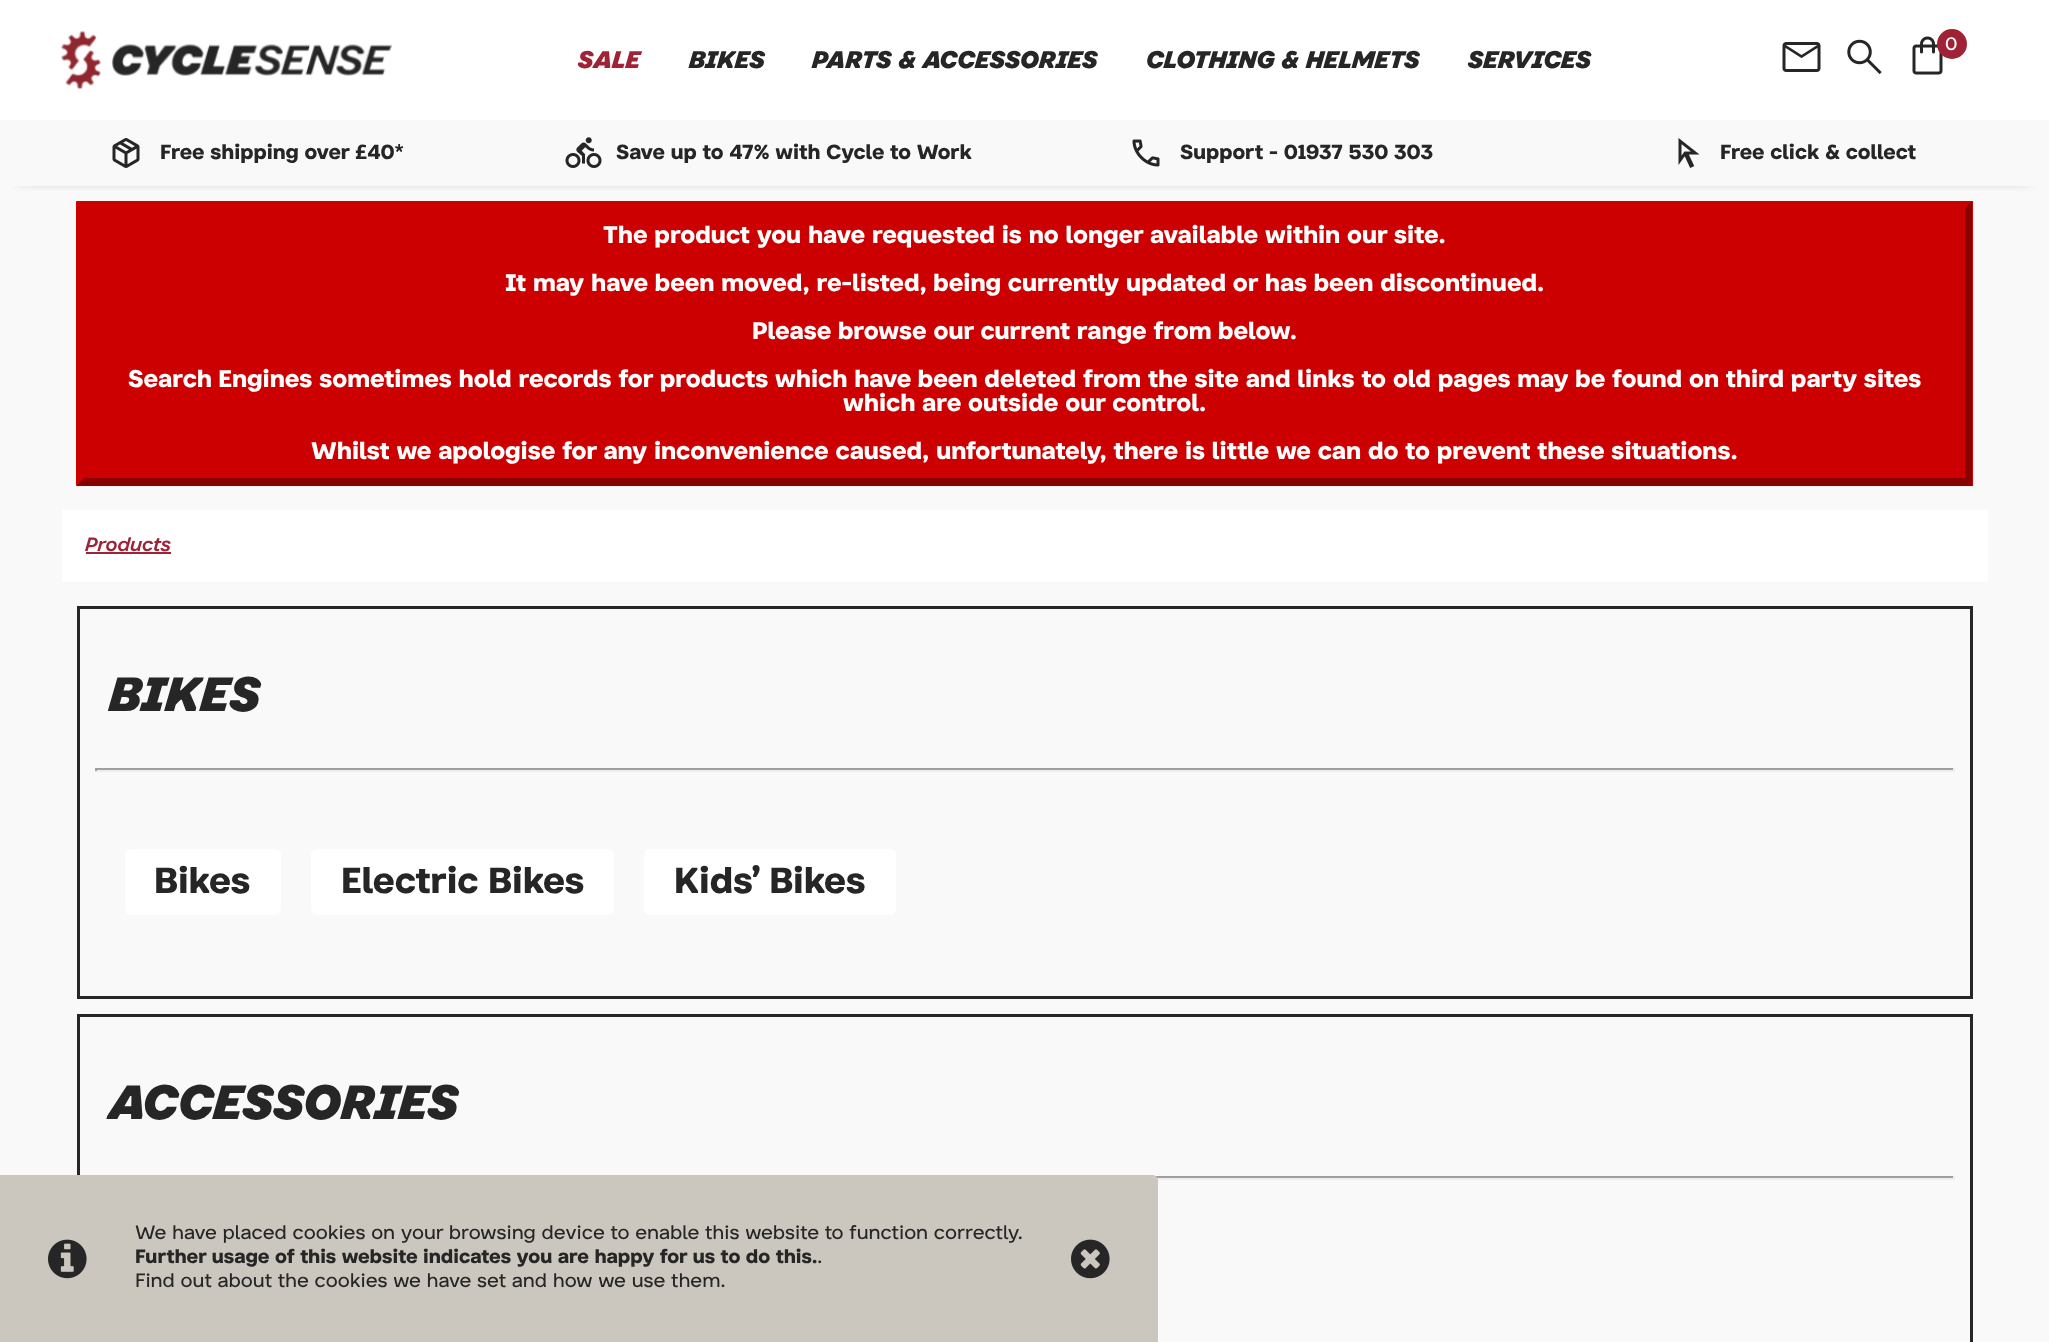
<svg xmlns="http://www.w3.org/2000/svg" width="2049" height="1342">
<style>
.a{font:18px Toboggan;fill:#fff}
.b{font:italic 900 24px Toboggan;fill:#9f2236}
.c{font:italic 900 24px Toboggan;fill:#262626}
.d{font:bold 20.4px Toboggan;fill:#262626}
.e{font:bold 24px Toboggan;fill:#fff}
.f{font:italic 500 19.2px Toboggan;fill:#9f2236}
.g{font:italic 900 48px Toboggan;fill:#262626}
.h{font:bold 36px Toboggan;fill:#262626}
.i{font:19.2px Toboggan;fill:#262626}
.j{font:bold 19.2px Toboggan;fill:#262626}
</style>
<defs>
<clipPath id="clip1"><path d="M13 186h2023v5H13z"/></clipPath>
</defs>
<rect width="100%" height="100%" fill="#f9f9f9"/>
<g clip-path="url(#clip1)">
<path fill="#262626" filter="blur(9px)" d="M18 143h2013v30H18z"/>
</g>
<path fill="#fff" d="M0 0h2049v120H0z"/>
<image href="1.png" x="61" y="31" width="331" height="58"/>
<image href="2.png" x="1782" y="42" width="39" height="30"/>
<image href="3.png" x="1847" y="39" width="35" height="36"/>
<image href="4.png" x="1912" y="36" width="31" height="39"/>
<circle fill="#9f2236" cx="1952" cy="44" r="15"/>
<image href="5.png" x="112" y="138" width="28" height="30"/>
<image href="6.png" x="565" y="137" width="37" height="31"/>
<image href="7.png" x="1132" y="139" width="28" height="28"/>
<image href="8.png" x="1678" y="138" width="22" height="30"/>
<path fill="#c00" d="M77 201h1896v285H77z"/>
<path fill="#c00" d="M76 201h1896l-7 7h-1881z"/>
<path fill="#800" d="M1972 201v285l-7-8v-270z"/>
<path fill="#800" d="M1972 486h-1896l8-8h1881z"/>
<path fill="#c00" d="M76 486v-285l8 7v270z"/>
<path fill="#fff" d="M62 510h1926v72H62z"/>
<path fill="#9f2236" d="M86 552h85v2H86z"/>
<path fill="none" stroke="#262626" stroke-width="3" d="M78.5 607.5h1893v390H78.5z"/>
<path fill="#9f9f9f" d="M95 768h1860v2H95z"/>
<path fill="#eee" d="M1953 768h2v3H1953z"/>
<path fill="#eee" d="M95 770h1860v2H95z"/>
<path fill="#9f9f9f" d="M95 768h2v3H95z"/>
<rect fill="#fff" x="125" y="849" width="156" height="66" rx="6"/>
<rect fill="#fff" x="311" y="849" width="303" height="66" rx="6"/>
<rect fill="#fff" x="644" y="849" width="252" height="66" rx="6"/>
<path fill="none" stroke="#262626" stroke-width="3" d="M78.5 1015.5h1893v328H78.5z"/>
<path fill="#9f9f9f" d="M1155 1176h800v2H1155z"/>
<path fill="#eee" d="M1953 1176h2v3H1953z"/>
<path fill="#eee" d="M1157 1178h798v2H1157z"/>
<path fill="#ccc7be" d="M0 1175h1152c3.5 0 6 2.5 6 6v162h-1158z"/>
<image href="9.png" x="48" y="1239" width="39" height="40"/>
<image href="10.png" x="1071" y="1239" width="39" height="40"/>
<text class="a" x="1945" y="50">0</text>
<text class="b" x="578" y="68">SALE</text>
<text class="c" x="689" y="68">BIKES</text>
<text class="c" x="812" y="68">PARTS &amp; ACCESSORIES</text>
<text class="c" x="1146" y="68">CLOTHING &amp; HELMETS</text>
<text class="c" x="1468" y="68">SERVICES</text>
<text class="d" x="160" y="159">Free shipping over £40*</text>
<text class="d" x="616" y="159">Save up to 47% with Cycle to Work</text>
<text class="d" x="1180" y="159">Support - 01937 530 303</text>
<text class="d" x="1720" y="159">Free click &amp; collect</text>
<text class="e" x="603" y="243">The product you have requested is no longer available within our site.</text>
<text class="e" x="505" y="291">It may have been moved, re-listed, being currently updated or has been discontinued.</text>
<text class="e" x="752" y="339">Please browse our current range from below.</text>
<text class="e" x="128" y="387">Search Engines sometimes hold records for products which have been deleted from the site and links to old pages may be found on third party sites</text>
<text class="e" x="843" y="411">which are outside our control.</text>
<text class="e" x="311" y="459">Whilst we apologise for any inconvenience caused, unfortunately, there is little we can do to prevent these situations.</text>
<text class="f" x="85" y="551">Products</text>
<text class="g" x="109" y="711">BIKES</text>
<text class="h" x="154" y="893">Bikes</text>
<text class="h" x="341" y="893">Electric Bikes</text>
<text class="h" x="674" y="893">Kids' Bikes</text>
<text class="g" x="109" y="1119">ACCESSORIES</text>
<text class="i" x="135" y="1239">We have placed cookies on your browsing device to enable this website to function correctly.</text>
<text class="j" x="135" y="1263">Further usage of this website indicates you are happy for us to do this.</text>
<text class="i" x="817" y="1263">.</text>
<text class="i" x="135" y="1287">Find out about the cookies we have set and how we use them.</text>
</svg>
